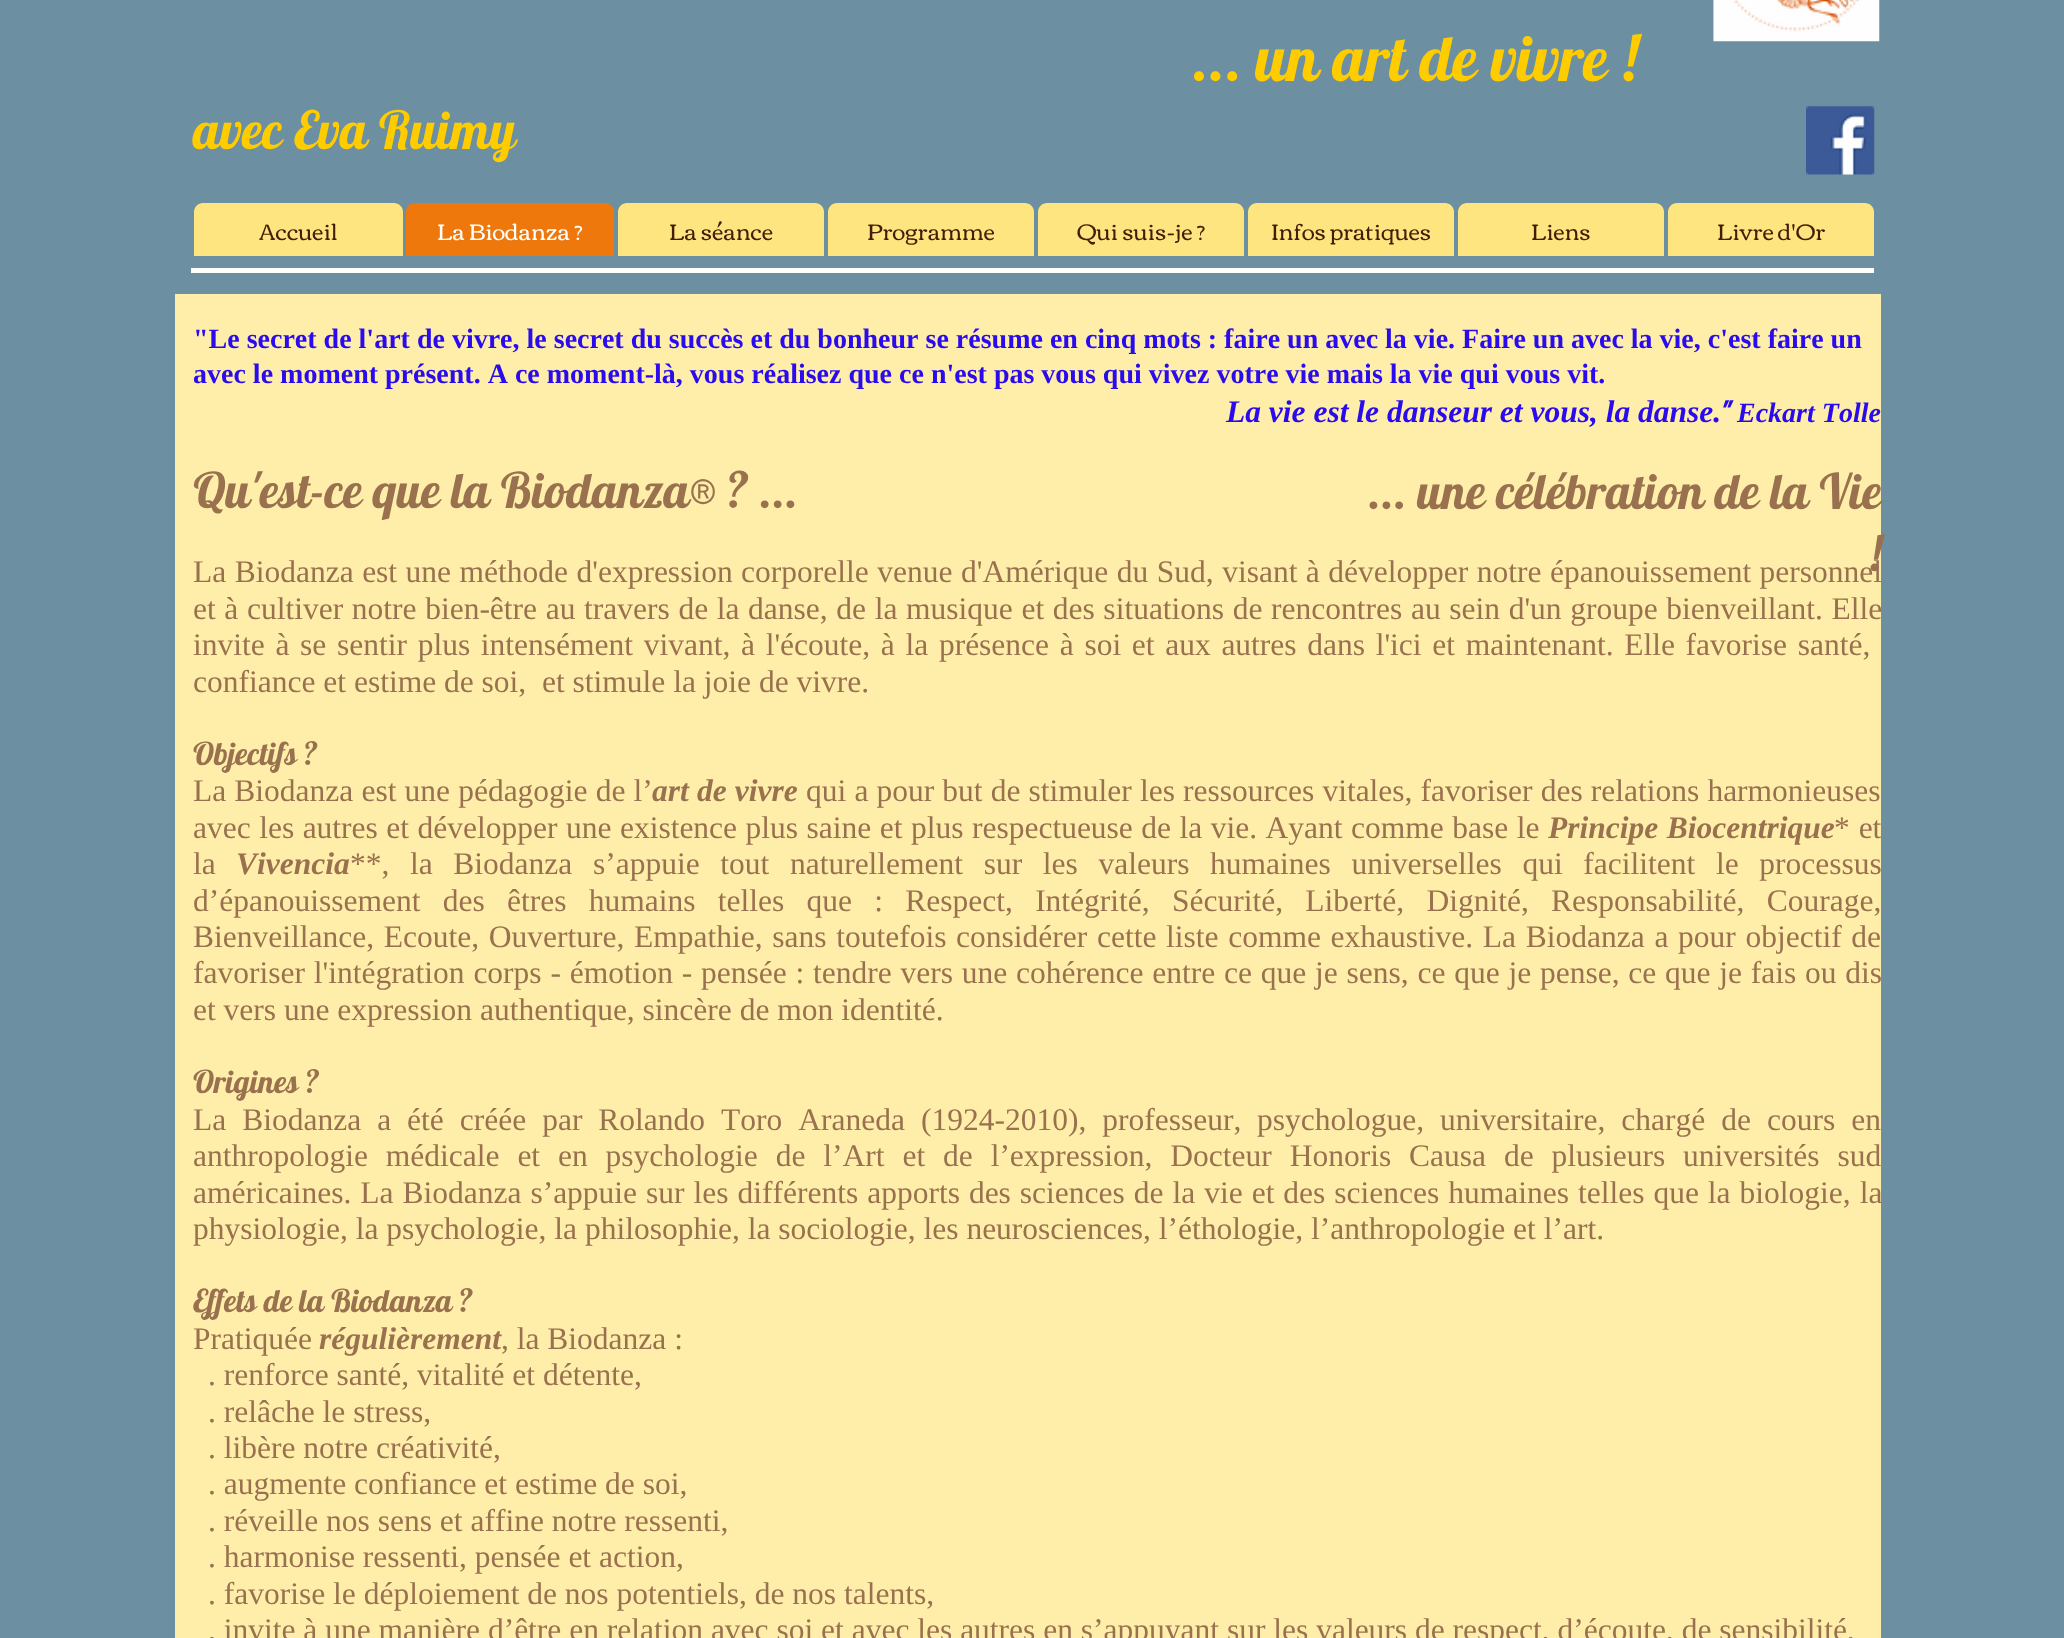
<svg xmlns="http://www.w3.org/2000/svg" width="2064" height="1638">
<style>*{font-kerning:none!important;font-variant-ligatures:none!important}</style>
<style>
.a{font:63px Lobster;fill:#fc0}
.b{font:52.5px Lobster;fill:#fc0}
.c{font:22.75px Corben;fill:#441c08}
.d{font:22.75px Corben;fill:#fff}
.e{font:bold 28px Liberation Serif;fill:#290bee}
.f{font:italic bold 31.5px Liberation Serif;fill:#290bee}
.g{font:bold 28px Lobster;fill:#290bee}
.h{font:italic bold 28px Liberation Serif;fill:#290bee}
.i{font:49px Lobster;fill:#99714e}
.j{font:31.5px Liberation Serif;fill:#99714e}
.k{font:31.5px Lobster;fill:#99714e}
.l{font:italic bold 31.5px Liberation Serif;fill:#99714e}
</style>
<rect width="100%" height="100%" fill="#6c90a1"/>
<image href="1.png" x="1713" y="0" width="167" height="42"/>
<image href="2.png" x="1806" y="106" width="69" height="69"/>
<path fill="#ffe57f" d="M203 203h191c5 0 9 4 9 9v44h-209v-44c0-5 4-9 9-9z"/>
<path fill="#ee780b" d="M415 203h190c5 0 9 4 9 9v44h-208v-44c0-5 4-9 9-9z"/>
<path fill="#ffe57f" d="M627 203h188c5 0 9 4 9 9v44h-206v-44c0-5 4-9 9-9z"/>
<path fill="#ffe57f" d="M837 203h188c5 0 9 4 9 9v44h-206v-44c0-5 4-9 9-9z"/>
<path fill="#ffe57f" d="M1047 203h188c5 0 9 4 9 9v44h-206v-44c0-5 4-9 9-9z"/>
<path fill="#ffe57f" d="M1257 203h188c5 0 9 4 9 9v44h-206v-44c0-5 4-9 9-9z"/>
<path fill="#ffe57f" d="M1467 203h188c5 0 9 4 9 9v44h-206v-44c0-5 4-9 9-9z"/>
<path fill="#ffe57f" d="M1677 203h188c5 0 9 4 9 9v44h-206v-44c0-5 4-9 9-9z"/>
<path fill="#fff" d="M191 268h1683v5H191z"/>
<path fill="#fea" d="M175 294h1706v1344H175z"/>
<text class="a" x="1192" y="81">... un art de vivre !</text>
<text class="b" x="193" y="149">avec Eva Ruimy</text>
<text class="c" x="259" y="240">Accueil</text>
<text class="d" x="437" y="240">La Biodanza ?</text>
<text class="c" x="669" y="240">La séance</text>
<text class="c" x="867" y="240">Programme</text>
<text class="c" x="1077" y="240">Qui suis-je ?</text>
<text class="c" x="1271" y="240">Infos pratiques</text>
<text class="c" x="1531" y="240">Liens</text>
<text class="c" x="1717" y="240">Livre d'Or</text>
<text class="e" x="193" y="348">"Le secret de l'art de vivre, le secret du succès et du bonheur se résume en cinq mots : faire un avec la vie. Faire un avec la vie, c'est faire un</text>
<text class="e" x="193" y="383">avec le moment présent. A ce moment-là, vous réalisez que ce n'est pas vous qui vivez votre vie mais la vie qui vous vit.</text>
<text class="f" x="1226" y="422">La vie est le danseur et vous, la danse.</text>
<text class="g" x="1721" y="422">"</text>
<text class="h" x="1737" y="422">Eckart Tolle</text>
<text class="i" x="193" y="508">Qu'est-ce que la Biodanza®</text>
<text class="i" x="727" y="508">? ...</text>
<text class="j" x="193" y="582" word-spacing="0.6">La Biodanza est une méthode d'expression corporelle venue d'Amérique du Sud, visant à développer notre épanouissement personnel</text>
<text class="j" x="193" y="619" word-spacing="0.75">et à cultiver notre bien-être au travers de la danse, de la musique et des situations de rencontres au sein d'un groupe bienveillant. Elle</text>
<text class="j" x="193" y="655" word-spacing="2.8">invite à se sentir plus intensément vivant, à l'écoute, à la présence à soi et aux autres dans l'ici et maintenant. Elle favorise santé,</text>
<text class="j" xml:space="preserve" x="193" y="692">confiance et estime de soi,  et stimule la joie de vivre.</text>
<text class="k" x="193" y="765">Objectifs ?</text>
<text class="j" x="193" y="801" word-spacing="0.25">La Biodanza est une pédagogie de l’</text>
<text class="l" x="652" y="801" word-spacing="0.25">art de vivre</text>
<text class="j" x="806" y="801" word-spacing="0.25">qui a pour but de stimuler les ressources vitales, favoriser des relations harmonieuses</text>
<text class="j" x="193" y="838" word-spacing="0.6">avec les autres et développer une existence plus saine et plus respectueuse de la vie. Ayant comme base le</text>
<text class="l" x="1548" y="838" word-spacing="0.6">Principe Biocentrique</text>
<text class="j" x="1834" y="838" word-spacing="1">* et</text>
<text class="j" x="193" y="874">la</text>
<text class="l" x="236" y="874">Vivencia</text>
<text class="j" x="350" y="874" word-spacing="12.75">**, la Biodanza s’appuie tout naturellement sur les valeurs humaines universelles qui facilitent le processus</text>
<text class="j" x="193" y="911" word-spacing="14.4">d’épanouissement des êtres humains telles que : Respect, Intégrité, Sécurité, Liberté, Dignité, Responsabilité, Courage,</text>
<text class="j" x="193" y="947" word-spacing="1.8">Bienveillance, Ecoute, Ouverture, Empathie, sans toutefois considérer cette liste comme exhaustive. La Biodanza a pour objectif de</text>
<text class="j" x="193" y="983" word-spacing="0.9">favoriser l'intégration corps - émotion - pensée : tendre vers une cohérence entre ce que je sens, ce que je pense, ce que je fais ou dis</text>
<text class="j" x="193" y="1020">et vers une expression authentique, sincère de mon identité.</text>
<text class="k" x="193" y="1093">Origines ?</text>
<text class="j" x="193" y="1130" word-spacing="8.1">La Biodanza a été créée par Rolando Toro Araneda (1924-2010), professeur,</text>
<text class="j" x="1257" y="1130" word-spacing="8.1">psychologue, universitaire, chargé de cours en</text>
<text class="j" x="193" y="1166" word-spacing="10">anthropologie médicale et en psychologie de l’Art et de l’expression, Docteur Honoris Causa de plusieurs universités sud</text>
<text class="j" x="193" y="1203" word-spacing="1.1">américaines. La Biodanza s’appuie sur les différents apports des sciences de la vie et des sciences humaines telles que la biologie, la</text>
<text class="j" x="193" y="1239">physiologie, la psychologie, la philosophie, la sociologie, les neurosciences, l’éthologie, l’anthropologie et l’art.</text>
<text class="k" x="193" y="1312">Effets de la Biodanza</text>
<text class="k" x="459" y="1312">?</text>
<text class="j" x="193" y="1349">Pratiquée</text>
<text class="l" x="319" y="1349">régulièrement</text>
<text class="j" x="501" y="1349">, la Biodanza :</text>
<text class="j" x="208" y="1385">. renforce santé, vitalité et détente,</text>
<text class="j" x="208" y="1422">. relâche le stress,</text>
<text class="j" x="208" y="1458">. libère notre créativité,</text>
<text class="j" x="208" y="1494">. augmente confiance et estime de soi,</text>
<text class="j" x="208" y="1531">. réveille nos sens et affine notre ressenti,</text>
<text class="j" x="208" y="1567">. harmonise ressenti, pensée et action,</text>
<text class="j" x="208" y="1604">. favorise le déploiement de nos potentiels, de nos talents,</text>
<text class="j" x="208" y="1640">. invite à une manière d’être en relation avec soi et avec les autres en s’appuyant sur les valeurs de respect, d’écoute, de sensibilité,</text>
<text class="i" x="1368" y="509">... une célébration de la Vie</text>
<text class="i" x="1869" y="571">!</text>
</svg>
